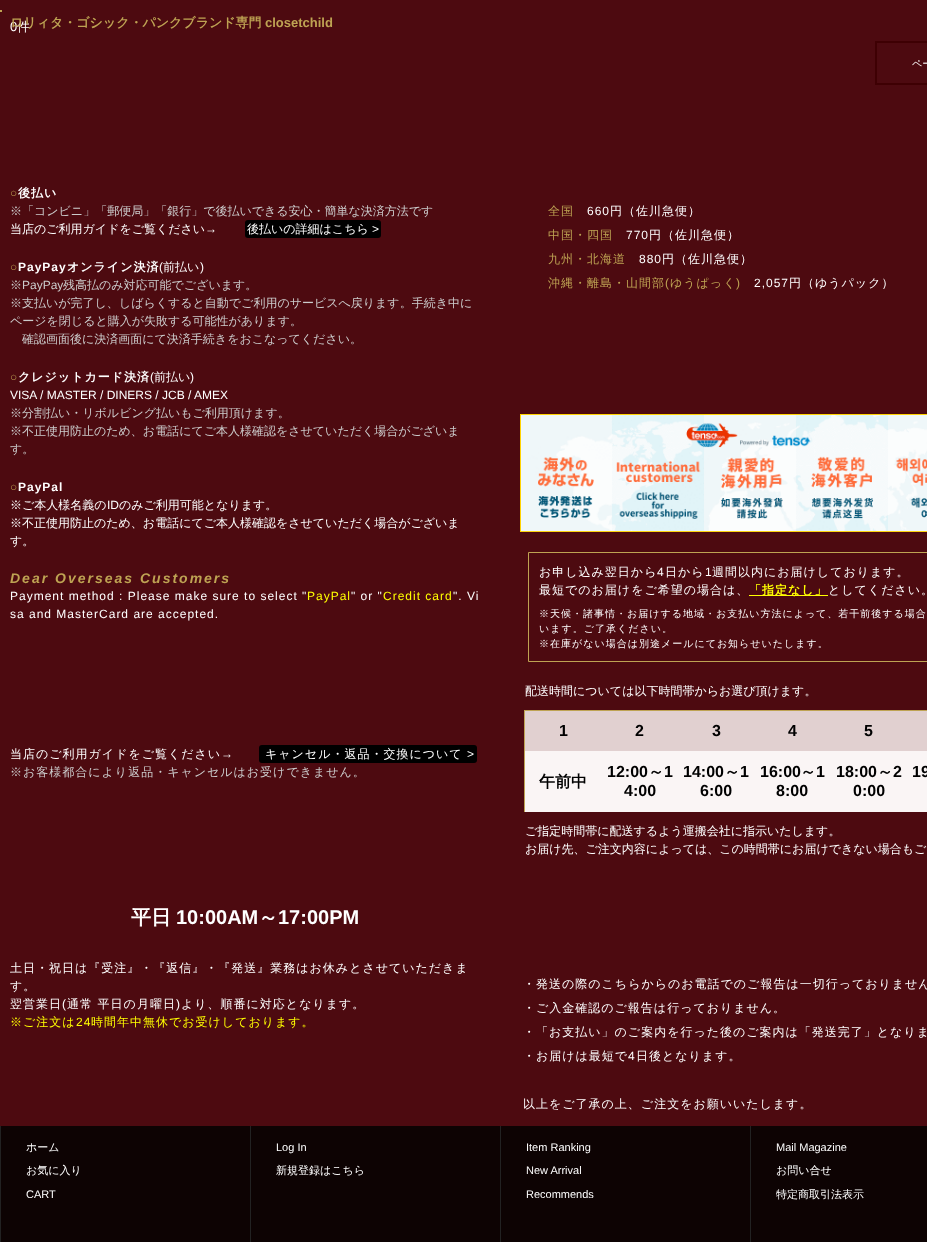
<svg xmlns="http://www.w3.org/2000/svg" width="927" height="1242">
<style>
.a{font:bold 13px Liberation Sans;fill:#bea353}
.b{font:13px Liberation Sans;fill:#fff}
.c{font:500 13px WenQuanYi Zen Hei;fill:#fff}
.d{font:bold 13px WenQuanYi Zen Hei;fill:#bea353}
.e{font:500 10px WenQuanYi Zen Hei;fill:#fff}
.f{font:bold 12px Liberation Sans;letter-spacing:1px;fill:#bea353}
.g{font:bold 12px WenQuanYi Zen Hei;letter-spacing:1px;fill:#fff}
.h{font:500 12px WenQuanYi Zen Hei;fill:#ccc}
.i{font:500 12px WenQuanYi Zen Hei;fill:#fff}
.j{font:12px Liberation Sans;fill:#fff}
.k{font:bold 12px Liberation Sans;letter-spacing:1px;fill:#fff}
.l{font:12px Liberation Sans;fill:#ccc}
.m{font:italic bold 14px Liberation Sans;letter-spacing:2px;fill:#bea353}
.n{font:12px Liberation Sans;letter-spacing:1px;fill:#fff}
.o{font:12px Liberation Sans;letter-spacing:1px;fill:#ff0}
.p{font:500 12px WenQuanYi Zen Hei;letter-spacing:1px;fill:#fff}
.q{font:500 12px WenQuanYi Zen Hei;letter-spacing:1px;fill:#ccc}
.r{font:bold 20px WenQuanYi Zen Hei;fill:#fff}
.s{font:bold 20px Liberation Sans;fill:#fff}
.t{font:500 12px WenQuanYi Zen Hei;letter-spacing:1px;fill:#ff0}
.u{font:500 12px WenQuanYi Zen Hei;letter-spacing:1px;fill:#bea353}
.v{font:12px Liberation Sans;letter-spacing:1px;fill:#bea353}
.w{font:bold 12px WenQuanYi Zen Hei;letter-spacing:1px;fill:#ff0}
.x{font:500 10px WenQuanYi Zen Hei;letter-spacing:1px;fill:#fff}
.y{font:bold 16px Liberation Sans;fill:#000}
.z{font:bold 16px WenQuanYi Zen Hei;fill:#000}
.a1{font:500 11px WenQuanYi Zen Hei;fill:#fff}
.b1{font:11px Liberation Sans;fill:#fff}
</style>
<rect width="100%" height="100%" fill="#4d0a10"/>
<path fill="#bea353" d="M0 10h2v2H0z"/>
<path fill="none" stroke="#3e0003" stroke-width="2" d="M876 42h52v42H876z"/>
<path fill="#0d0303" d="M1 1126h926v116H1z"/>
<rect fill="#000" x="245" y="220" width="136" height="18" rx="3"/>
<rect fill="#000" x="259" y="745" width="218" height="18" rx="3"/>
<image href="1.png" x="520" y="414" width="407" height="118"/>
<path fill="none" stroke="#bea353" d="M528.5 552.5h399v109H528.5z"/>
<path fill="#ff0" d="M749 595h79v1H749z"/>
<path fill="#faf5f5" d="M525 751h402v61H525z"/>
<path fill="#bea353" d="M524 710h403v1H524z"/>
<path fill="#bea353" d="M524 710h1v102H524z"/>
<path fill="#e1d0d0" d="M525 711h402v40H525z"/>
<path fill="#222" d="M0 1126h1v116H0z"/>
<path fill="#222" d="M250 1126h1v116H250z"/>
<path fill="#222" d="M500 1126h1v116H500z"/>
<path fill="#222" d="M750 1126h1v116H750z"/>
<text class="a" x="265" y="27">closetchild</text>
<text class="b" x="10" y="31">0</text>
<text class="c" x="17" y="31">件</text>
<text class="d" x="10" y="27">ロリィタ・ゴシック・パンクブランド専門</text>
<text class="e" x="912" y="67">ペー</text>
<text class="f" x="10" y="197">○</text>
<text class="g" x="18" y="197">後払い</text>
<text class="h" x="10" y="215">※「コンビニ」「郵便局」「銀行」で後払いできる安心・簡単な決済方法です</text>
<text class="i" x="10" y="233">当店のご利用ガイドをご覧ください</text>
<text class="j" x="205" y="233">→</text>
<text class="i" x="247" y="233">後払いの詳細はこちら</text>
<text class="j" x="372" y="233">&gt;</text>
<text class="f" x="10" y="271">○</text>
<text class="k" x="18" y="271">PayPay</text>
<text class="g" x="67" y="271">オンライン決済</text>
<text class="j" x="159" y="271">(</text>
<text class="i" x="163" y="271">前払い</text>
<text class="j" x="200" y="271">)</text>
<text class="h" x="10" y="289">※</text>
<text class="l" x="22" y="289">PayPay</text>
<text class="h" x="63" y="289">残高払のみ対応可能でございます。</text>
<text class="h" x="10" y="307">※支払いが完了し、しばらくすると自動でご利用のサービスへ戻ります。手続き中に</text>
<text class="h" x="10" y="325">ページを閉じると購入が失敗する可能性があります。</text>
<text class="h" x="22" y="343">確認画面後に決済画面にて決済手続きをおこなってください。</text>
<text class="f" x="10" y="381">○</text>
<text class="g" x="18" y="381">クレジットカード決済</text>
<text class="j" x="150" y="381">(</text>
<text class="i" x="154" y="381">前払い</text>
<text class="j" x="190" y="381">)</text>
<text class="j" x="10" y="399">VISA / MASTER / DINERS / JCB / AMEX</text>
<text class="h" x="10" y="417">※分割払い・リボルビング払いもご利用頂けます。</text>
<text class="h" x="10" y="435">※不正使用防止のため、お電話にてご本人様確認をさせていただく場合がございま</text>
<text class="h" x="10" y="453">す。</text>
<text class="f" x="10" y="491">○</text>
<text class="k" x="18" y="491">PayPal</text>
<text class="i" x="10" y="509">※ご本人様名義の</text>
<text class="j" x="107" y="509">ID</text>
<text class="i" x="119" y="509">のみご利用可能となります。</text>
<text class="i" x="10" y="527">※不正使用防止のため、お電話にてご本人様確認をさせていただく場合がございま</text>
<text class="i" x="10" y="545">す。</text>
<text class="m" x="10" y="583">Dear Overseas Customers</text>
<text class="n" x="10" y="600">Payment method : Please make sure to select "</text>
<text class="o" x="307" y="600">PayPal</text>
<text class="n" x="351" y="600">" or "</text>
<text class="o" x="383" y="600">Credit card</text>
<text class="n" x="453" y="600">". Vi</text>
<text class="n" x="10" y="618">sa and MasterCard are accepted.</text>
<text class="p" x="10" y="758">当店のご利用ガイドをご覧ください</text>
<text class="n" x="221" y="758">→</text>
<text class="p" x="265" y="758">キャンセル・返品・交換について</text>
<text class="n" x="467" y="758">&gt;</text>
<text class="q" x="10" y="776">※お客様都合により返品・キャンセルはお受けできません。</text>
<text class="r" x="131" y="924">平日</text>
<text class="s" x="176" y="924">10:00AM</text>
<text class="r" x="258" y="924">～</text>
<text class="s" x="278" y="924">17:00PM</text>
<text class="p" x="10" y="972">土日・祝日は『受注』・『返信』・『発送』業務はお休みとさせていただきま</text>
<text class="p" x="10" y="990">す。</text>
<text class="p" x="10" y="1008">翌営業日</text>
<text class="n" x="62" y="1008">(</text>
<text class="p" x="67" y="1008">通常 平日の月曜日</text>
<text class="n" x="176" y="1008">)</text>
<text class="p" x="181" y="1008">より、順番に対応となります。</text>
<text class="t" x="10" y="1026">※ご注文は</text>
<text class="o" x="76" y="1026">24</text>
<text class="t" x="91" y="1026">時間年中無休でお受けしております。</text>
<text class="u" x="548" y="215">全国</text>
<text class="n" x="587" y="215">660</text>
<text class="p" x="610" y="215">円（佐川急便）</text>
<text class="u" x="548" y="239">中国・四国</text>
<text class="n" x="626" y="239">770</text>
<text class="p" x="649" y="239">円（佐川急便）</text>
<text class="u" x="548" y="263">九州・北海道</text>
<text class="n" x="639" y="263">880</text>
<text class="p" x="662" y="263">円（佐川急便）</text>
<text class="u" x="548" y="287">沖縄・離島・山間部</text>
<text class="v" x="665" y="287">(</text>
<text class="u" x="670" y="287">ゆうぱっく</text>
<text class="v" x="736" y="287">)</text>
<text class="n" x="754" y="287">2,057</text>
<text class="p" x="789" y="287">円（ゆうパック）</text>
<text class="p" x="539" y="576">お申し込み翌日から</text>
<text class="n" x="657" y="576">4</text>
<text class="p" x="665" y="576">日から</text>
<text class="n" x="705" y="576">1</text>
<text class="p" x="712" y="576">週間以内にお届けしております。</text>
<text class="p" x="539" y="594">最短でのお届けをご希望の場合は、</text>
<text class="w" x="749" y="594">「指定なし」</text>
<text class="p" x="828" y="594">としてください。</text>
<text class="x" x="539" y="617">※天候・諸事情・お届けする地域・お支払い方法によって、若干前後する場合</text>
<text class="x" x="539" y="632">います。ご了承ください。</text>
<text class="x" x="539" y="647">※在庫がない場合は別途メールにてお知らせいたします。</text>
<text class="i" x="525" y="695">配送時間については以下時間帯からお選び頂けます。</text>
<text class="y" x="559" y="736">1</text>
<text class="y" x="635" y="736">2</text>
<text class="y" x="712" y="736">3</text>
<text class="y" x="788" y="736">4</text>
<text class="y" x="864" y="736">5</text>
<text class="y" x="607" y="777">12:00</text>
<text class="z" x="648" y="777">～</text>
<text class="y" x="664" y="777">1</text>
<text class="y" x="624" y="796">4:00</text>
<text class="y" x="683" y="777">14:00</text>
<text class="z" x="724" y="777">～</text>
<text class="y" x="740" y="777">1</text>
<text class="y" x="700" y="796">6:00</text>
<text class="y" x="760" y="777">16:00</text>
<text class="z" x="800" y="777">～</text>
<text class="y" x="816" y="777">1</text>
<text class="y" x="776" y="796">8:00</text>
<text class="y" x="836" y="777">18:00</text>
<text class="z" x="877" y="777">～</text>
<text class="y" x="893" y="777">2</text>
<text class="y" x="853" y="796">0:00</text>
<text class="y" x="912" y="777">19</text>
<text class="z" x="539" y="787">午前中</text>
<text class="i" x="525" y="835">ご指定時間帯に配送するよう運搬会社に指示いたします。</text>
<text class="i" x="525" y="853">お届け先、ご注文内容によっては、この時間帯にお届けできない場合もご</text>
<text class="p" x="523" y="988">・発送の際のこちらからのお電話でのご報告は一切行っておりません</text>
<text class="p" x="523" y="1012">・ご入金確認のご報告は行っておりません。</text>
<text class="p" x="523" y="1036">・「お支払い」のご案内を行った後のご案内は「発送完了」となりま</text>
<text class="p" x="523" y="1060">・お届けは最短で</text>
<text class="n" x="628" y="1060">4</text>
<text class="p" x="636" y="1060">日後となります。</text>
<text class="p" x="523" y="1108">以上をご了承の上、ご注文をお願いいたします。</text>
<text class="a1" x="26" y="1151">ホーム</text>
<text class="a1" x="26" y="1174">お気に入り</text>
<text class="b1" x="26" y="1198">CART</text>
<text class="b1" x="276" y="1151">Log In</text>
<text class="a1" x="276" y="1174">新規登録はこちら</text>
<text class="b1" x="526" y="1151">Item Ranking</text>
<text class="b1" x="526" y="1174">New Arrival</text>
<text class="b1" x="526" y="1198">Recommends</text>
<text class="b1" x="776" y="1151">Mail Magazine</text>
<text class="a1" x="776" y="1174">お問い合せ</text>
<text class="a1" x="776" y="1198">特定商取引法表示</text>
</svg>
